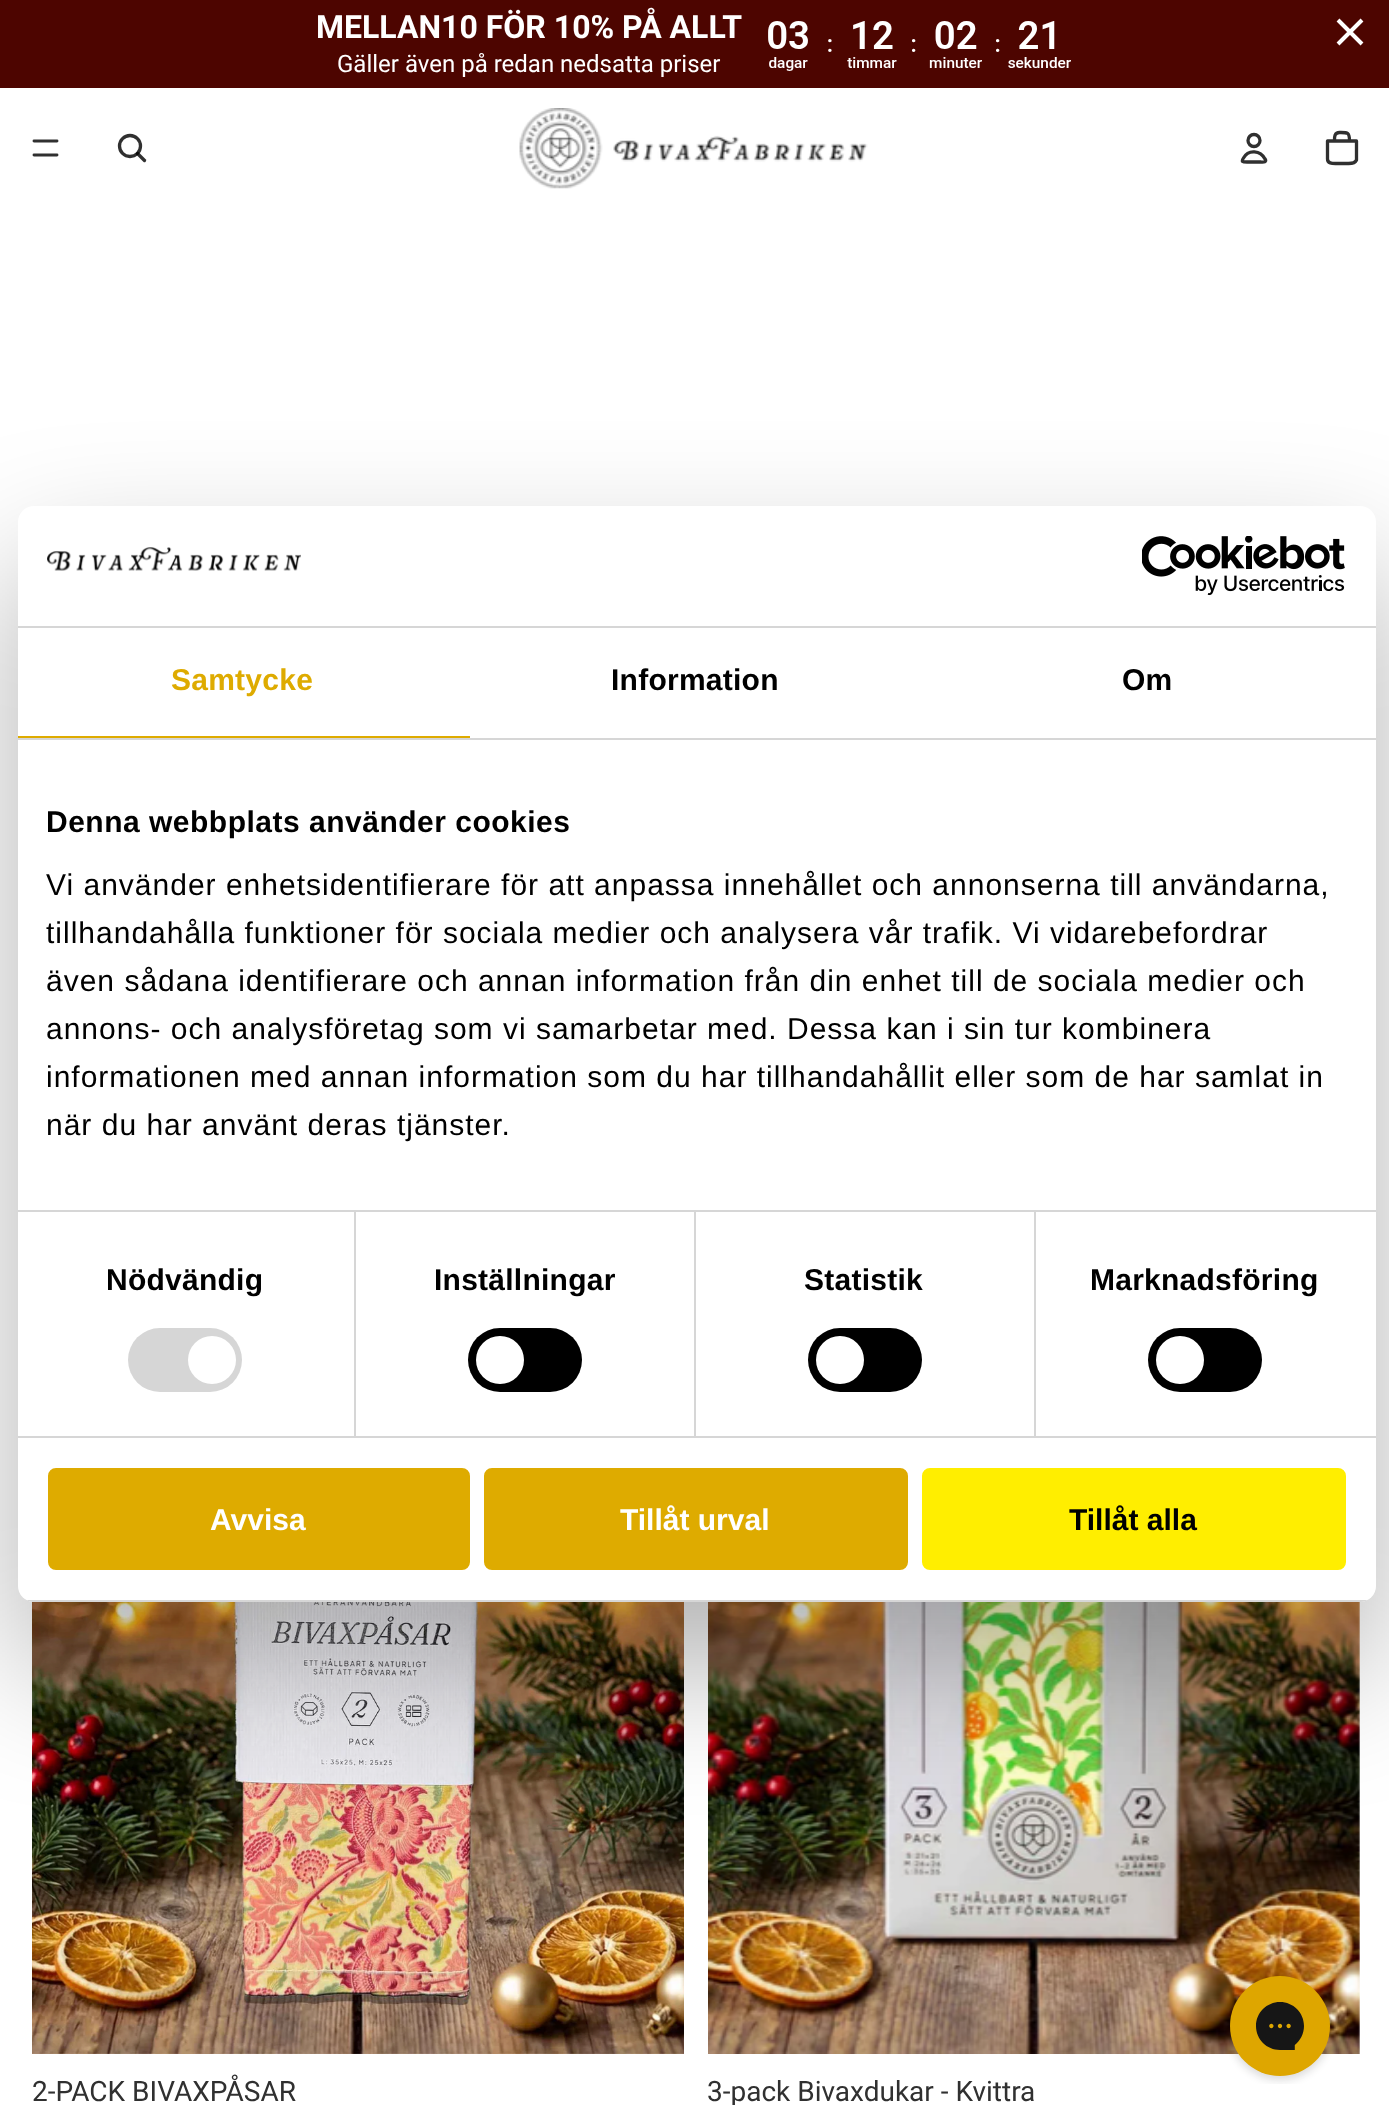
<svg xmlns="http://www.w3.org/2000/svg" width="1389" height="2105">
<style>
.a{font:bold 32px Roboto;fill:#fff}
.b{font:24px Roboto;fill:#fff}
.c{font:bold 30px Liberation Sans;letter-spacing:0.25px;fill:#deab00}
.d{font:bold 30px Liberation Sans;letter-spacing:0.25px;fill:#000}
.e{font:bold 30px Liberation Sans;letter-spacing:0.5px;fill:#000}
.f{font:30px Liberation Sans;letter-spacing:1px;fill:#000}
.g{font:bold 30px Liberation Sans;fill:#fff}
.h{font:bold 30px Liberation Sans;fill:#000}
.i{font:28px Roboto;fill:#303030}
</style>
<defs>
<clipPath id="clip1"><rect x="18" y="506" width="1358" height="1096" rx="16"/></clipPath>
</defs>
<rect width="100%" height="100%" fill="#fff"/>
<path fill="#4d0500" d="M0 0h1389v88H0z"/>
<image href="1.png" x="768" y="21" width="303" height="50"/>
<path fill="none" stroke="#fff" stroke-width="4" d="M1362 20l-24 24m24 0l-24-24"/>
<path fill="none" stroke="#303030" stroke-width="2.9" stroke-linecap="round" d="M34 141h23m-23 14h23"/>
<circle fill="none" stroke="#303030" stroke-width="3.3" cx="130" cy="146" r="10.5"/>
<path fill="none" stroke="#000000cf" stroke-width="3.3" stroke-linecap="round" stroke-linejoin="round" d="M137.5 153.5l7 7"/>
<image href="2.png" x="519" y="108" width="349" height="81"/>
<circle fill="none" stroke="#303030" stroke-width="3.3" cx="1254" cy="140.5" r="6"/>
<path fill="none" stroke="#303030" stroke-width="3.3" stroke-linecap="round" stroke-linejoin="round" d="M1243.5 158c-2.5 4-1 4 3.5 4h14c.5 0 4 .5 4.5-1c.5-.5 0-1.5-.5-2c-4.5-8.5-16.5-10-21.5-1"/>
<path fill="none" stroke="#303030" stroke-width="3.3" stroke-linecap="round" stroke-linejoin="round" d="M1327.5 141h29v19c-1.5 3.5-5 3.5-8 3.5h-13c-3.5 0-8 0-8-4.5zm12-8.5c8 0 10-.5 10 8.5h-15c0-3.5-.5-8.5 5-8.5"/>
<image href="6.png" x="32" y="1601" width="652" height="453"/>
<image href="7.png" x="708" y="1602" width="652" height="452"/>
<rect fill="#0000004d" filter="blur(68px)" x="18" y="570" width="1358" height="1096" rx="16"/>
<rect fill="#fff" x="18" y="506" width="1358" height="1096" rx="16"/>
<path fill="#d6d6d6" d="M18 626h1358v2H18z"/>
<image href="3.png" x="47" y="547" width="254" height="24"/>
<image href="4.png" x="1142" y="536" width="203" height="60"/>
<path fill="#d6d6d6" d="M18 738h1358v2H18z"/>
<path fill="#deab00" d="M18 736h452v2H18z"/>
<path fill="#d6d6d6" d="M18 1210h1358v2H18z"/>
<path fill="#d6d6d6" d="M18 1436h1358v2H18z"/>
<path fill="#d6d6d6" d="M354 1212h2v224H354z"/>
<rect fill="#d6d6d6" x="128" y="1328" width="114" height="64" rx="32"/>
<circle fill="#fff" cx="212" cy="1360" r="24"/>
<path fill="#d6d6d6" d="M694 1212h2v224H694z"/>
<rect fill="#000" x="468" y="1328" width="114" height="64" rx="32"/>
<circle fill="#fff" cx="500" cy="1360" r="24"/>
<path fill="#d6d6d6" d="M1034 1212h2v224H1034z"/>
<rect fill="#000" x="808" y="1328" width="114" height="64" rx="32"/>
<circle fill="#fff" cx="840" cy="1360" r="24"/>
<rect fill="#000" x="1148" y="1328" width="114" height="64" rx="32"/>
<circle fill="#fff" cx="1180" cy="1360" r="24"/>
<g clip-path="url(#clip1)">
<path fill="#d6d6d6" d="M18 1600h1358v2H18z"/>
</g>
<rect fill="#deab00" stroke="#deab00" stroke-width="4" x="50" y="1470" width="418" height="98" rx="6"/>
<rect fill="#deab00" stroke="#deab00" stroke-width="4" x="486" y="1470" width="420" height="98" rx="6"/>
<rect fill="#fe0" stroke="#fe0" stroke-width="4" x="924" y="1470" width="420" height="98" rx="6"/>
<image href="5.png" x="1229" y="1976" width="105" height="108"/>
<text class="a" x="316" y="38">MELLAN10 FÖR 10% PÅ ALLT</text>
<text class="b" x="337" y="72">Gäller även på redan nedsatta priser</text>
<text class="c" x="171" y="690">Samtycke</text>
<text class="d" x="611" y="690">Information</text>
<text class="d" x="1122" y="690">Om</text>
<text class="e" x="46" y="832">Denna webbplats använder cookies</text>
<text class="f" x="46" y="895">Vi använder enhetsidentifierare för att anpassa innehållet och annonserna till användarna,</text>
<text class="f" x="46" y="943">tillhandahålla funktioner för sociala medier och analysera vår trafik. Vi vidarebefordrar</text>
<text class="f" x="46" y="991">även sådana identifierare och annan information från din enhet till de sociala medier och</text>
<text class="f" x="46" y="1039">annons- och analysföretag som vi samarbetar med. Dessa kan i sin tur kombinera</text>
<text class="f" x="46" y="1087">informationen med annan information som du har tillhandahållit eller som de har samlat in</text>
<text class="f" x="46" y="1135">när du har använt deras tjänster.</text>
<text class="d" x="106" y="1290">Nödvändig</text>
<text class="d" x="434" y="1290">Inställningar</text>
<text class="d" x="804" y="1290">Statistik</text>
<text class="d" x="1090" y="1290">Marknadsföring</text>
<text class="g" x="210" y="1530">Avvisa</text>
<text class="g" x="620" y="1530">Tillåt urval</text>
<text class="h" x="1069" y="1530">Tillåt alla</text>
<text class="i" x="32" y="2101">2-PACK BIVAXPÅSAR</text>
<text class="i" x="707" y="2101">3-pack Bivaxdukar - Kvittra</text>
</svg>
